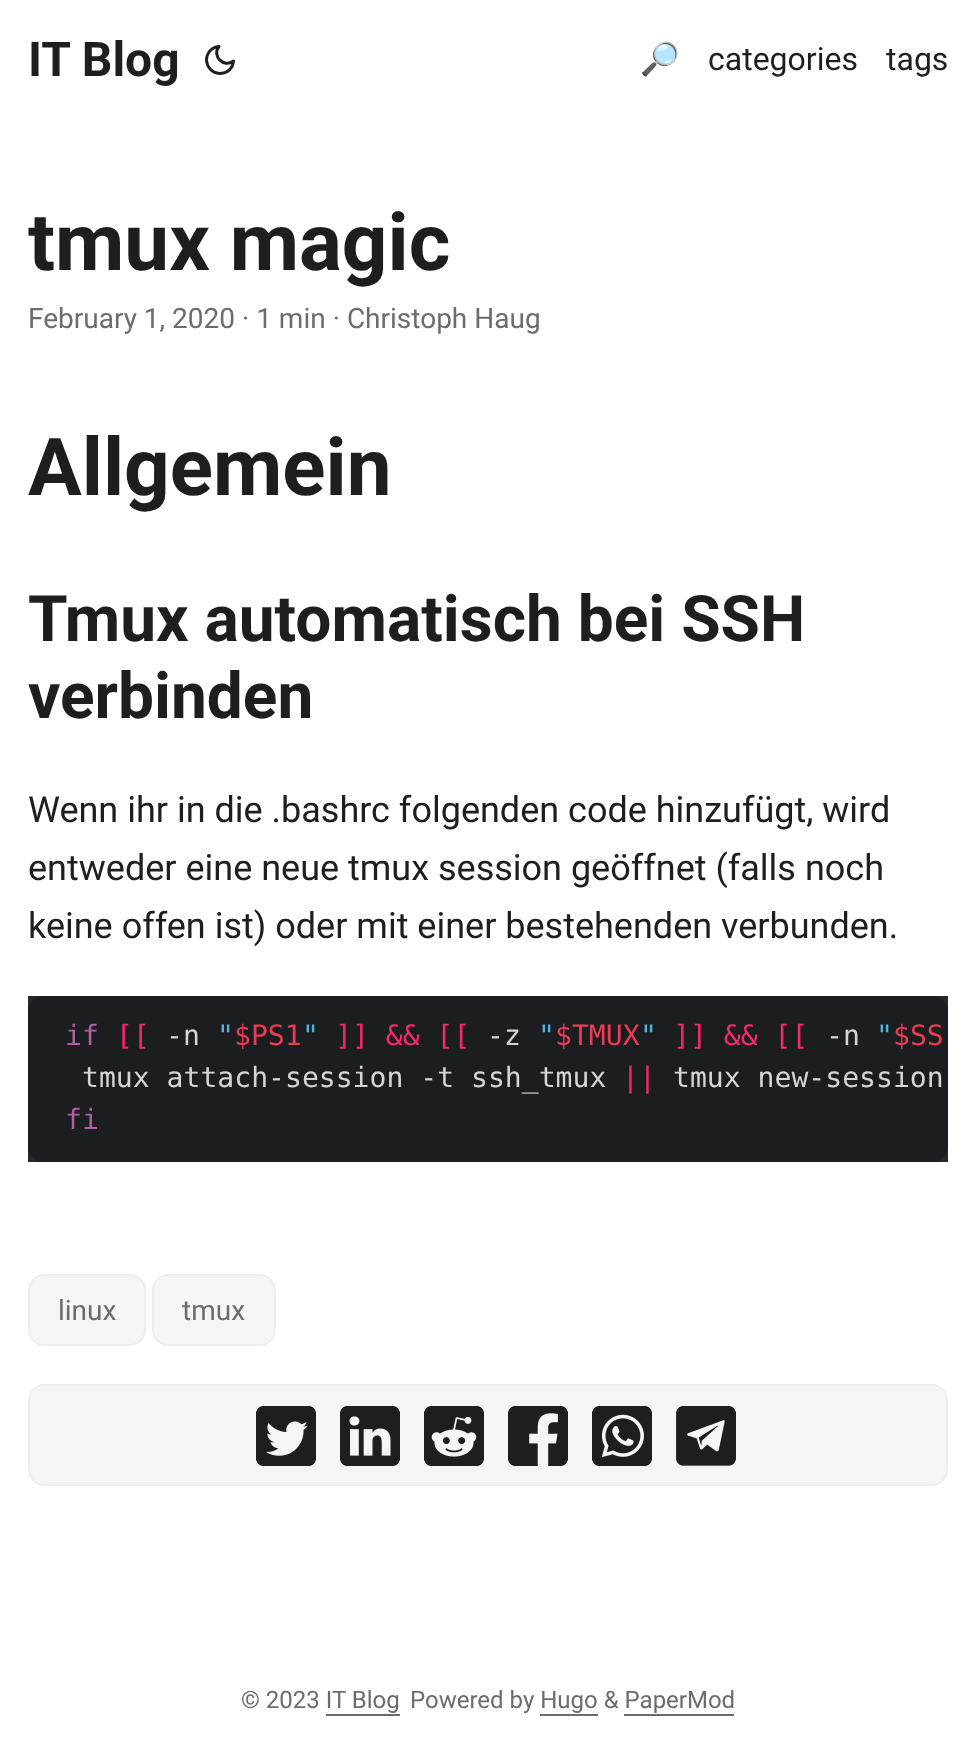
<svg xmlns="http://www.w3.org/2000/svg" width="975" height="1760">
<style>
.a{font:bold 48px Roboto;fill:#1e1e1e}
.b{font:32px Noto Color Emoji;fill:#1e1e1e}
.c{font:32px Roboto;fill:#1e1e1e}
.d{font:bold 80px Roboto;fill:#1e1e1e}
.e{font:28px Roboto;fill:#6c6c6c}
.f{font:bold 64px Roboto;fill:#1e1e1e}
.g{font:36px Roboto;fill:#1e1e1e}
.h{font:28.1px DejaVu Sans Mono;fill:#b45ea4}
.i{font:28.1px DejaVu Sans Mono;fill:#f92672}
.j{font:28.1px DejaVu Sans Mono;fill:#d5d5d6}
.k{font:28.1px DejaVu Sans Mono;fill:#4fb4d7}
.l{font:28.1px DejaVu Sans Mono;fill:#eb3c54}
.m{font:24px Roboto;fill:#6c6c6c}
</style>
<defs>
<clipPath id="clip1"><path d="M640 0h308v120H640z"/></clipPath>
</defs>
<rect width="100%" height="100%" fill="#fff"/>
<path fill="none" stroke="#1e1e1e" stroke-width="3" stroke-linecap="round" stroke-linejoin="round" d="M233.5 61c-.5 7.5-6.5 12.5-14 12.5c-7-.5-12.5-6-13-13c0-7.5 5-13.5 12.5-14c-7.5 9.5 5 22 14.5 14.5z"/>
<path fill="#272822" d="M28 996h920v166H28z"/>
<rect fill="#1c1d21" x="28" y="996" width="920" height="166" rx="16"/>
<rect fill="#f5f5f5" stroke="#eee" stroke-width="2" x="29" y="1275" width="116" height="70" rx="15"/>
<rect fill="#f5f5f5" stroke="#eee" stroke-width="2" x="153" y="1275" width="122" height="70" rx="15"/>
<rect fill="#f5f5f5" stroke="#eee" stroke-width="2" x="29" y="1385" width="918" height="100" rx="15"/>
<image href="1.png" x="256" y="1406" width="60" height="60"/>
<image href="2.png" x="340" y="1406" width="60" height="60"/>
<image href="3.png" x="424" y="1406" width="60" height="60"/>
<image href="4.png" x="508" y="1406" width="60" height="60"/>
<image href="5.png" x="592" y="1406" width="60" height="60"/>
<image href="6.png" x="676" y="1406" width="60" height="60"/>
<path fill="#6c6c6c" d="M326 1714h74v2H326z"/>
<path fill="#6c6c6c" d="M540 1714h58v2H540z"/>
<path fill="#6c6c6c" d="M624 1714h110v2H624z"/>
<text class="a" x="28" y="76">IT Blog</text>
<g clip-path="url(#clip1)">
<text class="b" x="640" y="70">🔎</text>
</g>
<text class="c" x="708" y="70">categories</text>
<text class="c" x="886" y="70">tags</text>
<text class="d" x="28" y="270">tmux magic</text>
<text class="e" x="28" y="328">February 1, 2020 · 1 min · Christoph Haug</text>
<text class="d" x="28" y="495">Allgemein</text>
<text class="f" x="28" y="641">Tmux automatisch bei SSH</text>
<text class="f" x="28" y="718">verbinden</text>
<text class="g" x="28" y="822">Wenn ihr in die .bashrc folgenden code hinzufügt, wird</text>
<text class="g" x="28" y="880">entweder eine neue tmux session geöffnet (falls noch</text>
<text class="g" x="28" y="938">keine offen ist) oder mit einer bestehenden verbunden.</text>
<text class="h" x="65" y="1045">if</text>
<text class="i" x="116" y="1045">[[</text>
<text class="j" x="166" y="1045">-n</text>
<text class="k" x="217" y="1045">"</text>
<text class="l" x="234" y="1045">$PS1</text>
<text class="k" x="302" y="1045">"</text>
<text class="i" x="335" y="1045">]] &amp;&amp; [[</text>
<text class="j" x="487" y="1045">-z</text>
<text class="k" x="538" y="1045">"</text>
<text class="l" x="555" y="1045">$TMUX</text>
<text class="k" x="640" y="1045">"</text>
<text class="i" x="673" y="1045">]] &amp;&amp; [[</text>
<text class="j" x="826" y="1045">-n</text>
<text class="k" x="876" y="1045">"</text>
<text class="l" x="893" y="1045">$SS</text>
<text class="j" x="82" y="1087">tmux attach-session -t ssh_tmux</text>
<text class="i" x="622" y="1087">||</text>
<text class="j" x="673" y="1087">tmux new-session</text>
<text class="h" x="65" y="1129">fi</text>
<text class="e" x="58" y="1320">linux</text>
<text class="e" x="182" y="1320">tmux</text>
<text class="m" x="241" y="1708">© 2023 IT Blog</text>
<text class="m" x="410" y="1708">Powered by Hugo &amp; PaperMod</text>
</svg>
